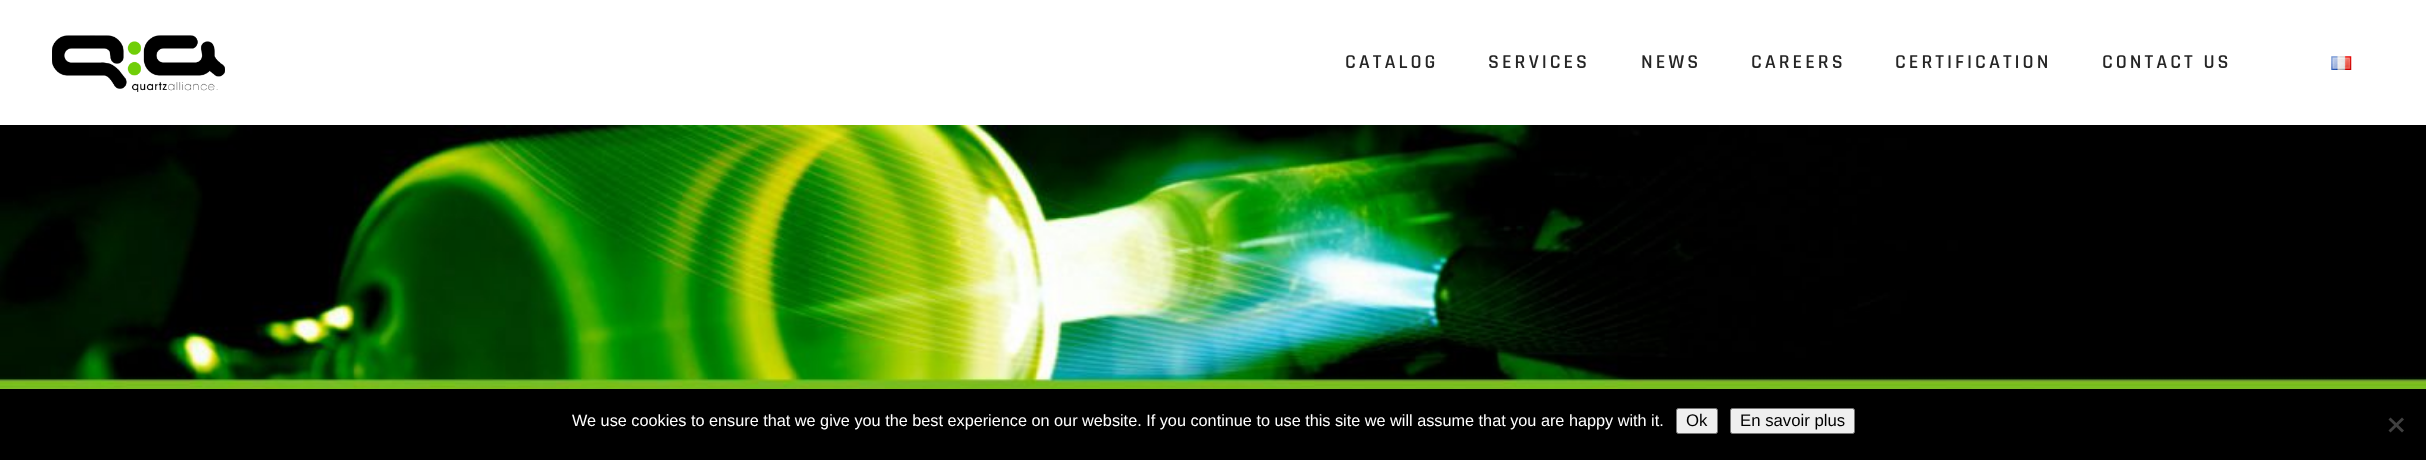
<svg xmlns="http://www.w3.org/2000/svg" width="2426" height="460">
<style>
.a{font:600 20px Rajdhani;letter-spacing:3px;fill:#262626}
.b{font:16.25px Liberation Sans;fill:#fff}
.c{font:16.75px Liberation Sans;fill:#000}
</style>
<rect width="100%" height="100%" fill="#fff"/>
<image href="1.png" x="52" y="35" width="173" height="57"/>
<image href="2.png" x="2331" y="56" width="21" height="14"/>
<image href="3.png" x="0" y="125" width="2426" height="264"/>
<path fill="#000" d="M0 389h2426v71H0z"/>
<rect fill="#efefef" stroke="#767676" x="1676.5" y="408.5" width="41" height="25" rx="2"/>
<rect fill="#efefef" stroke="#767676" x="1730.5" y="408.5" width="124" height="25" rx="2"/>
<path fill="#404040" d="M2402 417.5l2 2l-13.5 13l-2-2z"/>
<path fill="#404040" d="M2388.5 419.5l2-2l13.5 13l-2 2z"/>
<text class="a" x="1345" y="68">CATALOG</text>
<text class="a" x="1488" y="68">SERVICES</text>
<text class="a" x="1641" y="68">NEWS</text>
<text class="a" x="1751" y="68">CAREERS</text>
<text class="a" x="1895" y="68">CERTIFICATION</text>
<text class="a" x="2102" y="68">CONTACT US</text>
<text class="b" x="572" y="426">We use cookies to ensure that we give you the best experience on our website. If you continue to use this site we will assume that you are happy with it.</text>
<text class="c" x="1686" y="426">Ok</text>
<text class="c" x="1740" y="426">En savoir plus</text>
</svg>
